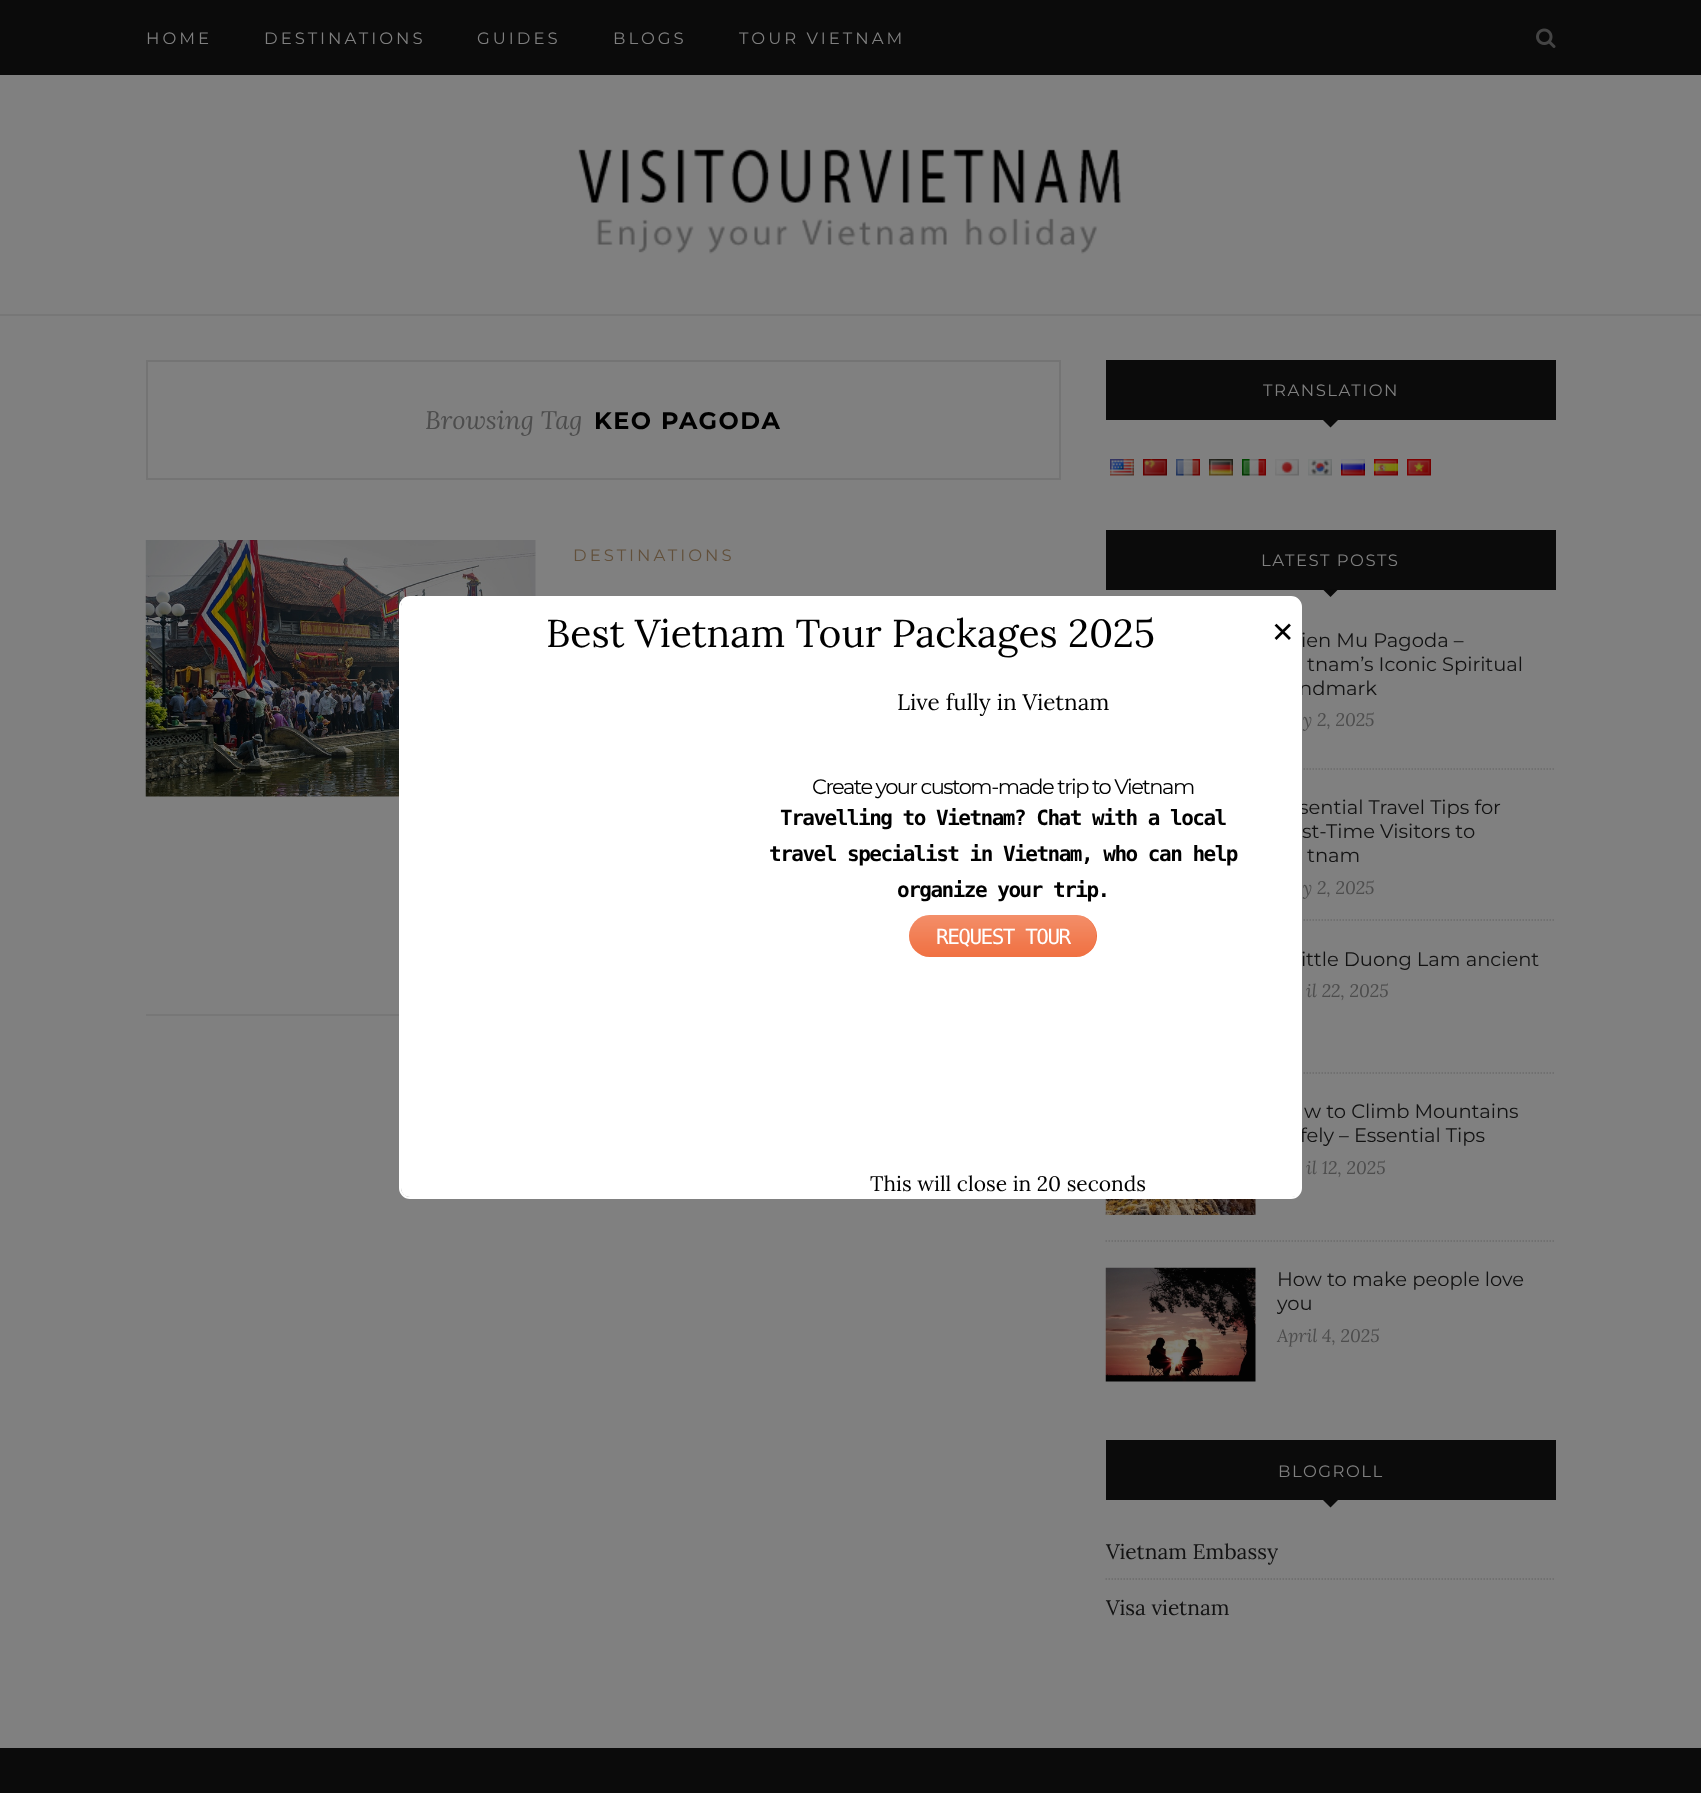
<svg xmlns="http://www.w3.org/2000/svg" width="1701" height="1793">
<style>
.a{font:16.5px Montserrat;letter-spacing:3px;fill:#808080}
.b{font:italic 25.5px Lora;fill:#4d4d4d}
.c{font:bold 24px Montserrat;letter-spacing:1.5px;fill:#000}
.d{font:16.5px Montserrat;letter-spacing:3px;fill:#62503b}
.e{font:16.5px Montserrat;letter-spacing:1.5px;fill:#808080}
.f{font:19.5px Montserrat;fill:#121212}
.g{font:italic 18px Lora;fill:#4d4d4d}
.h{font:21px Lora;fill:#121212}
.i{font:39px Lora;fill:#000}
.j{font:28px DejaVu Sans;fill:#000}
.k{font:22.5px Lora;fill:#000}
.l{font:21px Montserrat;letter-spacing:-1.5px;fill:#000}
.m{font:bold 21px DejaVu Sans Mono;letter-spacing:-1.5px;fill:#000}
.n{font:21px DejaVu Sans Mono;letter-spacing:-1.5px;fill:#fff}
.o{font:21px Lora;fill:#000}
</style>
<defs>
<clipPath id="clip1"><path d="M1277 1268h279v81H1277z"/></clipPath>
</defs>
<rect width="100%" height="100%" fill="#808080"/>
<path fill="#0b0b0b" d="M0 0h1701v75H0z"/>
<image href="1.png" x="1536" y="28" width="20" height="20"/>
<path fill="#777" d="M0 314h1701v2H0z"/>
<image href="2.png" x="578" y="149" width="543" height="105"/>
<path fill="none" stroke="#747474" stroke-width="2" d="M147 361h913v118H147z"/>
<path fill="#777" d="M146 1014h253v2H146z"/>
<image href="3.png" x="145" y="540" width="391" height="257"/>
<path fill="#0b0b0b" d="M1106 360h450v60H1106z"/>
<path fill="#0b0b0b" d="M1323 420h15l-7.5 7.5z"/>
<image href="4.png" x="1110" y="459" width="24" height="17"/>
<image href="5.png" x="1143" y="459" width="24" height="17"/>
<image href="6.png" x="1176" y="459" width="24" height="17"/>
<image href="7.png" x="1209" y="459" width="24" height="17"/>
<image href="8.png" x="1242" y="459" width="24" height="17"/>
<image href="9.png" x="1275" y="459" width="24" height="17"/>
<image href="10.png" x="1308" y="459" width="24" height="17"/>
<image href="11.png" x="1341" y="459" width="24" height="17"/>
<image href="12.png" x="1374" y="459" width="24" height="17"/>
<image href="13.png" x="1407" y="459" width="24" height="17"/>
<path fill="#0b0b0b" d="M1106 530h450v60H1106z"/>
<path fill="#0b0b0b" d="M1323 589.5h15l-7.5 7.5z"/>
<path fill="none" stroke="#6b6b6b" stroke-width="1.5" stroke-dasharray="1.5 1.5" d="M1105.5 769h450"/>
<path fill="none" stroke="#6b6b6b" stroke-width="1.5" stroke-dasharray="1.5 1.5" d="M1105.5 920h450"/>
<path fill="none" stroke="#6b6b6b" stroke-width="1.5" stroke-dasharray="1.5 1.5" d="M1105.5 1073h450"/>
<path fill="none" stroke="#6b6b6b" stroke-width="1.5" stroke-dasharray="1.5 1.5" d="M1105.5 1241h450"/>
<image href="14.png" x="1105" y="1199" width="151" height="16"/>
<image href="15.png" x="1105" y="1267" width="151" height="115"/>
<path fill="#0b0b0b" d="M1106 1440h450v60H1106z"/>
<path fill="#0b0b0b" d="M1323 1500h15l-7.5 7.5z"/>
<path fill="none" stroke="#6b6b6b" stroke-width="1.5" stroke-dasharray="1.5 1.5" d="M1105.5 1579h450"/>
<path fill="#0b0b0b" d="M0 1748h1701v45H0z"/>
<text class="a" x="146" y="44">HOME</text>
<text class="a" x="264" y="44">DESTINATIONS</text>
<text class="a" x="477" y="44">GUIDES</text>
<text class="a" x="613" y="44">BLOGS</text>
<text class="a" x="739" y="44">TOUR VIETNAM</text>
<text class="b" x="425" y="429">Browsing Tag</text>
<text class="c" x="594" y="429">KEO PAGODA</text>
<text class="d" x="573" y="561">DESTINATIONS</text>
<text class="e" x="1263" y="396">TRANSLATION</text>
<text class="e" x="1261" y="566">LATEST POSTS</text>
<text class="f" x="1301" y="647">ien Mu Pagoda –</text>
<text class="f" x="1307" y="671">tnam’s Iconic Spiritual</text>
<text class="f" x="1299" y="695">ndmark</text>
<text class="g" x="1303" y="726">y 2, 2025</text>
<text class="f" x="1299" y="814">sential Travel Tips for</text>
<text class="f" x="1302" y="838">st-Time Visitors to</text>
<text class="f" x="1307" y="862">tnam</text>
<text class="g" x="1303" y="894">y 2, 2025</text>
<text class="f" x="1301" y="966">ittle Duong Lam ancient</text>
<text class="g" x="1306" y="997">il 22, 2025</text>
<text class="f" x="1304" y="1118">w to Climb Mountains</text>
<text class="f" x="1300" y="1142">fely – Essential Tips</text>
<text class="g" x="1306" y="1174">il 12, 2025</text>
<text class="f" x="1277" y="1286">How to make people love</text>
<g clip-path="url(#clip1)">
<text class="f" x="1277" y="1310">you</text>
</g>
<text class="g" x="1277" y="1342">April 4, 2025</text>
<text class="e" x="1278" y="1477">BLOGROLL</text>
<text class="h" x="1106" y="1559">Vietnam Embassy</text>
<text class="h" x="1106" y="1615">Visa vietnam</text>
<rect fill="none" stroke="#fff" stroke-width="2" x="400" y="597" width="901" height="601" rx="10"/>
<path fill="#fff" d="M410 597h882c5 0 9 4 9 9v63h-900v-63c0-5 4-9 9-9z"/>
<text class="i" x="546" y="647">Best Vietnam Tour Packages 2025</text>
<text class="j" x="1271" y="642">✕</text>
<path fill="#fff" d="M401 669h900v519c0 5-4 9-9 9h-882c-5 0-9-4-9-9z"/>
<text class="k" x="897" y="710">Live fully in Vietnam</text>
<text class="l" x="812" y="794">Create your custom-made trip to Vietnam</text>
<text class="m" x="780" y="825">Travelling to Vietnam? Chat with a local</text>
<text class="m" x="769" y="861">travel specialist in Vietnam, who can help</text>
<text class="m" x="897" y="897">organize your trip.</text>
<rect fill="#ef612d" x="909" y="915" width="188" height="42" rx="21"/>
<image href="16.png" x="909" y="915" width="188" height="42"/>
<text class="n" x="936" y="944">REQUEST TOUR</text>
<text class="o" x="870" y="1191">This will close in 20 seconds</text>
</svg>
